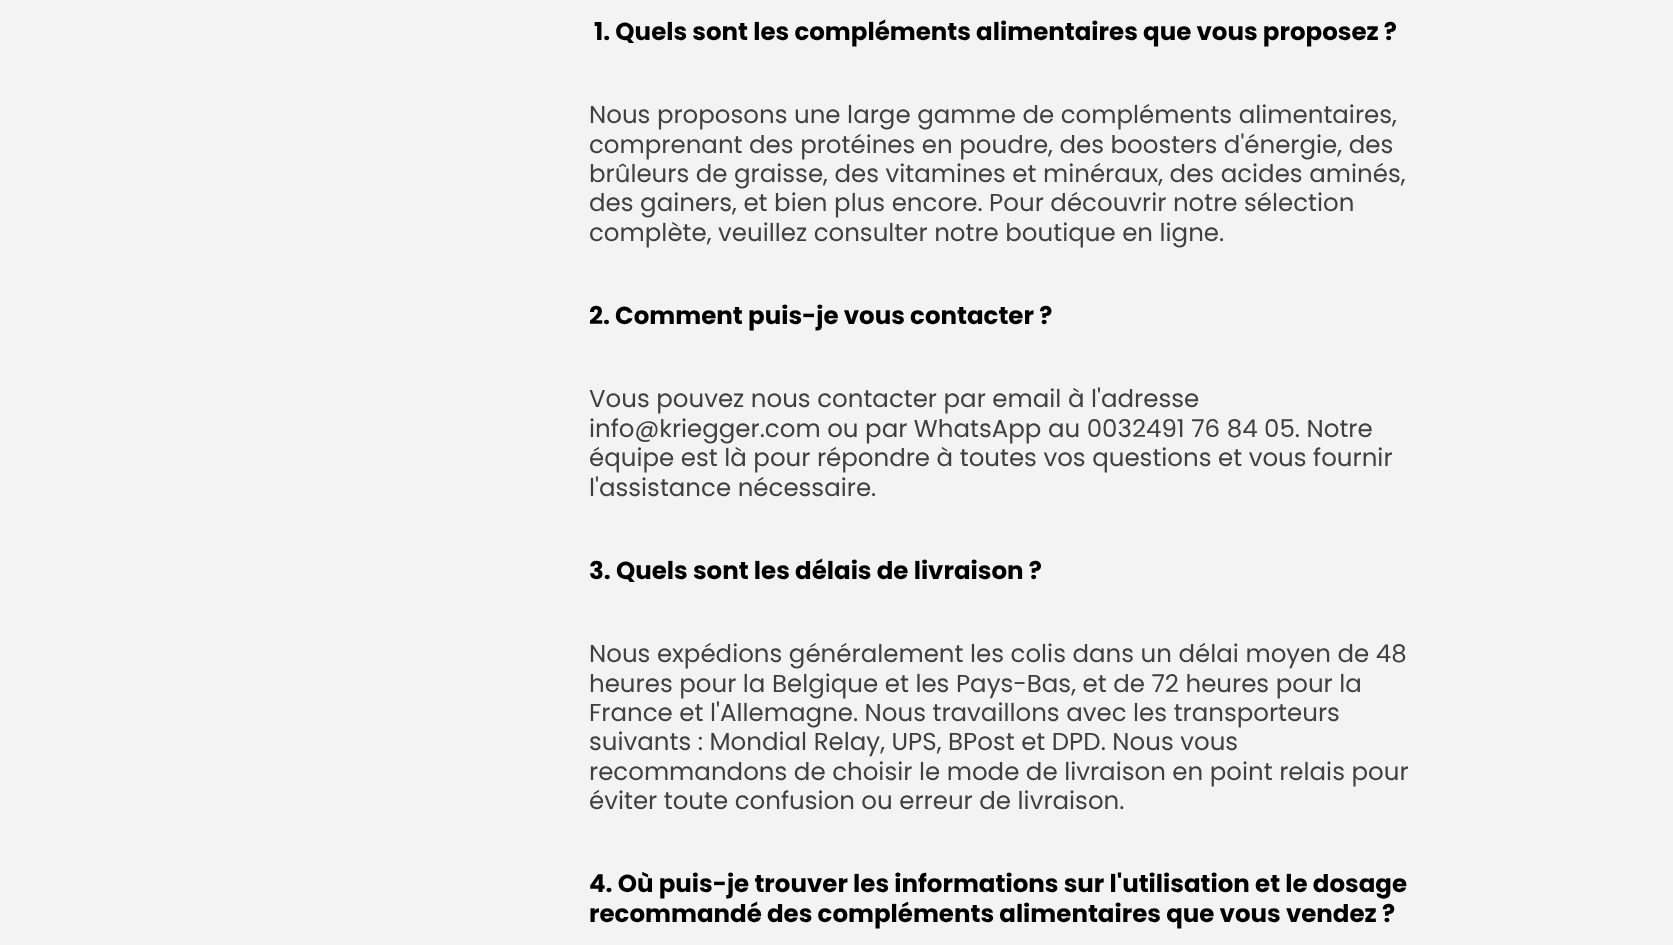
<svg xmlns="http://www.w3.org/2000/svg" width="1673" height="945">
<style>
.a{font:bold 24.5px Poppins;fill:#000}
.b{font:24.5px Poppins;fill:#404040}
</style>
<rect width="100%" height="100%" fill="#f3f3f3"/>
<text class="a" x="594" y="40">1. Quels sont les compléments alimentaires que vous proposez ?</text>
<text class="b" x="589" y="123">Nous proposons une large gamme de compléments alimentaires,</text>
<text class="b" x="589" y="153">comprenant des protéines en poudre, des boosters d'énergie, des</text>
<text class="b" x="589" y="182">brûleurs de graisse, des vitamines et minéraux, des acides aminés,</text>
<text class="b" x="589" y="211">des gainers, et bien plus encore. Pour découvrir notre sélection</text>
<text class="b" x="589" y="241">complète, veuillez consulter notre boutique en ligne.</text>
<text class="a" x="589" y="324">2. Comment puis-je vous contacter ?</text>
<text class="b" x="589" y="407">Vous pouvez nous contacter par email à l'adresse</text>
<text class="b" x="589" y="437">info@kriegger.com ou par WhatsApp au 0032491 76 84 05. Notre</text>
<text class="b" x="589" y="466">équipe est là pour répondre à toutes vos questions et vous fournir</text>
<text class="b" x="589" y="496">l'assistance nécessaire.</text>
<text class="a" x="589" y="579">3. Quels sont les délais de livraison ?</text>
<text class="b" x="589" y="662">Nous expédions généralement les colis dans un délai moyen de 48</text>
<text class="b" x="589" y="692">heures pour la Belgique et les Pays-Bas, et de 72 heures pour la</text>
<text class="b" x="589" y="721">France et l'Allemagne. Nous travaillons avec les transporteurs</text>
<text class="b" x="589" y="750">suivants : Mondial Relay, UPS, BPost et DPD. Nous vous</text>
<text class="b" x="589" y="780">recommandons de choisir le mode de livraison en point relais pour</text>
<text class="b" x="589" y="809">éviter toute confusion ou erreur de livraison.</text>
<text class="a" x="589" y="892">4. Où puis-je trouver les informations sur l'utilisation et le dosage</text>
<text class="a" x="589" y="922">recommandé des compléments alimentaires que vous vendez ?</text>
</svg>
